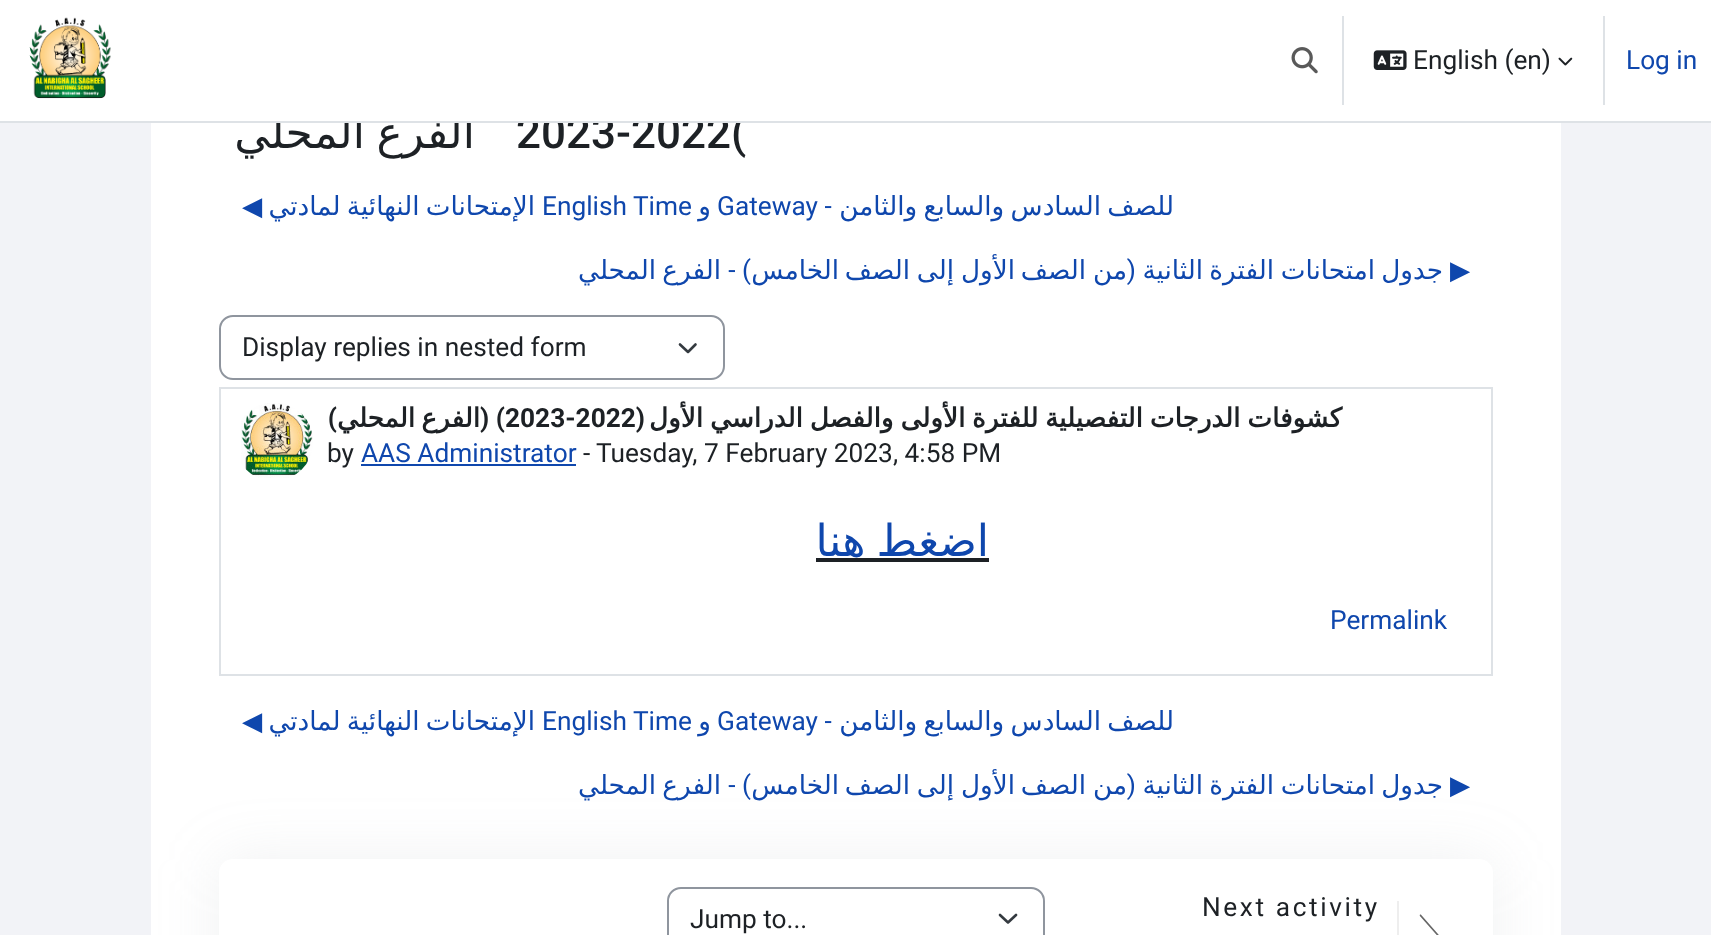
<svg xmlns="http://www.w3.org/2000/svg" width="1711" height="935">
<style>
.a{font:500 44px Roboto;fill:#1d2125}
.b{font:44px DejaVu Sans;direction:rtl;fill:#1d2125}
.c{font:26.25px Roboto;fill:#1d2125}
.d{font:26.25px Roboto;fill:#0f47ad}
.e{font:26.25px DejaVu Sans;direction:rtl;fill:#0f47ad}
.f{font:26.25px DejaVu Sans;fill:#0f47ad}
.g{font:26.25px Roboto;direction:rtl;fill:#0f47ad}
.h{font:bold 26.25px DejaVu Sans;direction:rtl;fill:#1d2125}
.i{font:bold 26.25px Roboto;direction:rtl;fill:#1d2125}
.j{font:bold 26.25px Roboto;fill:#1d2125}
.k{font:44px DejaVu Sans;direction:rtl;fill:#0f47ad}
.l{font:26.25px Roboto;letter-spacing:2.6px;fill:#1d2125}
</style>
<rect width="100%" height="100%" fill="#f2f3f7"/>
<path fill="#fff" d="M151 123h1410v812H151z"/>
<path fill="none" stroke="#343a40" stroke-width="2.6" stroke-linecap="round" stroke-linejoin="round" d="M680 344.5l8 7.5l7.5-7.5"/>
<rect fill="none" stroke="#8f959e" stroke-width="2" x="220" y="316" width="504" height="63" rx="13"/>
<path fill="none" stroke="#dee2e6" stroke-width="2" d="M220 388h1272v287H220z"/>
<path fill="#0f47ad" d="M361 464h215v2H361z"/>
<image href="5.png" x="241" y="403" width="72" height="75"/>
<path fill="#1d2125" d="M816 558h173v4H816z"/>
<rect fill="#9aa1ab26" filter="blur(30.5px)" x="219" y="859" width="1274" height="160" rx="14"/>
<rect fill="#fff" x="219" y="859" width="1274" height="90" rx="14"/>
<path fill="#eee" d="M1397 901h2v34H1397z"/>
<image href="6.png" x="1419" y="914" width="20" height="21"/>
<path fill="none" stroke="#343a40" stroke-width="2.6" stroke-linecap="round" stroke-linejoin="round" d="M1000 915l8 7.5l8-7.5"/>
<rect fill="none" stroke="#8f959e" stroke-width="2" x="668" y="888" width="376" height="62" rx="13"/>
<text class="a" x="516" y="148">2023-2022(</text>
<text class="b" x="475" y="148">الفرع</text>
<text class="b" x="365" y="148">المحلي</text>
<path fill="#fff" d="M0 0h1711v121H0z"/>
<image href="1.png" x="1558" y="57" width="15" height="9"/>
<text class="c" x="1413" y="69">English (en)</text>
<image href="2.png" x="1373" y="50" width="34" height="20"/>
<text class="d" x="1626" y="69">Log in</text>
<path fill="#dee2e6" d="M1603 16h2v89H1603z"/>
<path fill="#dee2e6" d="M1342 16h2v89H1342z"/>
<image href="3.png" x="1291" y="47" width="27" height="27"/>
<image href="4.png" x="29" y="17" width="82" height="82"/>
<path fill="#dee2e6" d="M0 121h1711v2H0z"/>
<text class="e" x="1174" y="215" word-spacing="-2">للصف السادس والسابع والثامن</text>
<text class="d" x="717" y="215">Gateway -</text>
<text class="e" x="711" y="215">و</text>
<text class="d" x="542" y="215">English Time</text>
<text class="e" x="535" y="215" word-spacing="-2">الإمتحانات النهائية لمادتي</text>
<text class="f" x="242" y="215">◀︎</text>
<text class="f" x="1450" y="279">▶︎</text>
<text class="e" x="1443" y="279">جدول</text>
<text class="e" x="1375" y="279">امتحانات</text>
<text class="e" x="1274" y="279">الفترة</text>
<text class="e" x="1203" y="279">الثانية</text>
<text class="g" x="1136" y="279">(</text>
<text class="e" x="1127" y="279">من</text>
<text class="e" x="1086" y="279">الصف</text>
<text class="e" x="1015" y="279">الأول</text>
<text class="e" x="954" y="279">إلى</text>
<text class="e" x="910" y="279">الصف</text>
<text class="e" x="839" y="279">الخامس</text>
<text class="g" x="751" y="279">) -</text>
<text class="e" x="721" y="279">الفرع</text>
<text class="e" x="656" y="279">المحلي</text>
<text class="c" x="242" y="356">Display replies in nested form</text>
<text class="h" x="1342" y="427" word-spacing="-1.5">كشوفات الدرجات التفصيلية للفترة الأولى والفصل الدراسي الأول</text>
<text class="i" x="645" y="427">(</text>
<text class="j" x="505" y="427">2023-2022</text>
<text class="i" x="505" y="427">) (</text>
<text class="h" x="480" y="427">الفرع</text>
<text class="h" x="415" y="427">المحلي</text>
<text class="i" x="337" y="427">)</text>
<text class="c" x="596" y="462">Tuesday, 7 February 2023, 4:58 PM</text>
<text class="c" x="583" y="462">-</text>
<text class="d" x="361" y="462">AAS Administrator</text>
<text class="c" x="327" y="462">by</text>
<text class="k" x="989" y="556" word-spacing="-3">اضغط هنا</text>
<text class="d" x="1330" y="629">Permalink</text>
<text class="e" x="1174" y="730" word-spacing="-2">للصف السادس والسابع والثامن</text>
<text class="d" x="717" y="730">Gateway -</text>
<text class="e" x="711" y="730">و</text>
<text class="d" x="542" y="730">English Time</text>
<text class="e" x="535" y="730" word-spacing="-2">الإمتحانات النهائية لمادتي</text>
<text class="f" x="242" y="730">◀︎</text>
<text class="f" x="1450" y="794">▶︎</text>
<text class="e" x="1443" y="794">جدول</text>
<text class="e" x="1375" y="794">امتحانات</text>
<text class="e" x="1274" y="794">الفترة</text>
<text class="e" x="1203" y="794">الثانية</text>
<text class="g" x="1136" y="794">(</text>
<text class="e" x="1127" y="794">من</text>
<text class="e" x="1086" y="794">الصف</text>
<text class="e" x="1015" y="794">الأول</text>
<text class="e" x="954" y="794">إلى</text>
<text class="e" x="910" y="794">الصف</text>
<text class="e" x="839" y="794">الخامس</text>
<text class="g" x="751" y="794">) -</text>
<text class="e" x="721" y="794">الفرع</text>
<text class="e" x="656" y="794">المحلي</text>
<text class="l" x="1202" y="916">Next activity</text>
<text class="c" x="690" y="928">Jump to...</text>
</svg>
